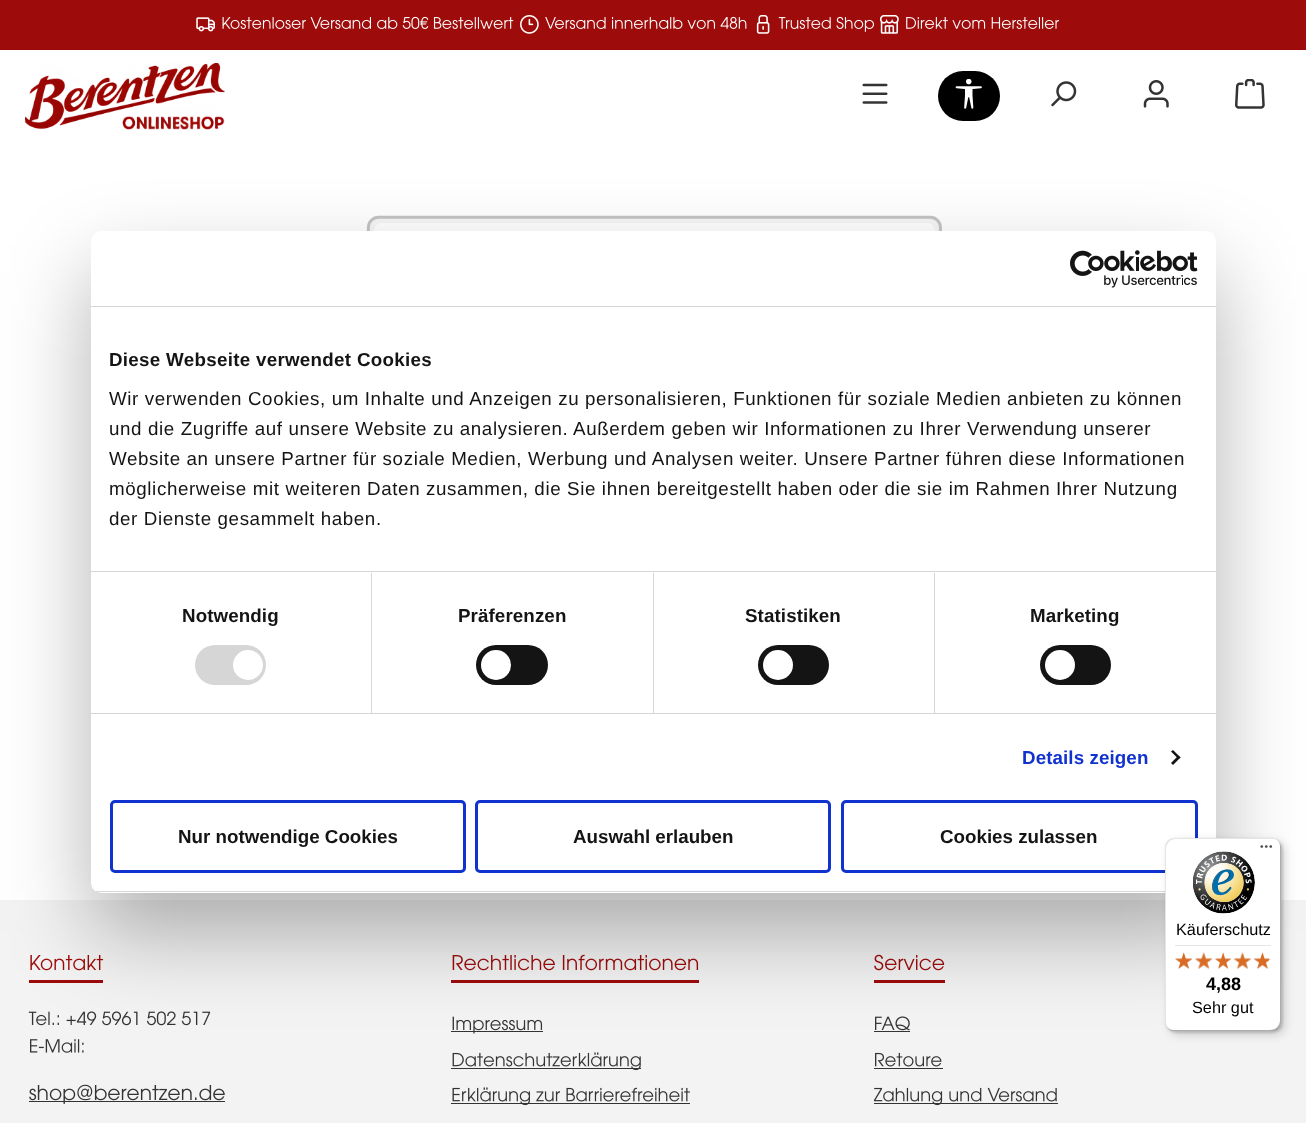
<svg xmlns="http://www.w3.org/2000/svg" width="1306" height="1123">
<style>
.a{font:bold 18.75px Liberation Sans;letter-spacing:0.3px;fill:#141414}
.b{font:18.75px Liberation Sans;letter-spacing:0.62px;fill:#141414}
.c{font:bold 18.75px Liberation Sans;letter-spacing:0.1px;fill:#141414}
.d{font:bold 18.75px Liberation Sans;letter-spacing:0.1px;fill:#1032cf}
.e{font:bold 18.75px Liberation Sans;fill:#141414}
.f{font:16.25px Liberation Sans;fill:#000}
.g{font:bold 18px Liberation Sans;fill:#000}
</style>
<defs>
<clipPath id="clip1"><rect x="91" y="231" width="1125" height="662" rx="10"/></clipPath>
</defs>
<rect width="100%" height="100%" fill="#fff"/>
<path fill="#9e0b0b" d="M0 0h1306v50H0z"/>
<image href="1.png" x="196" y="17" width="19" height="15"/>
<image href="2.png" x="222" y="16" width="292" height="13"/>
<image href="3.png" x="520" y="15" width="19" height="19"/>
<image href="4.png" x="545" y="16" width="202" height="13"/>
<image href="5.png" x="756" y="15" width="14" height="19"/>
<image href="6.png" x="778" y="16" width="96" height="16"/>
<image href="7.png" x="880" y="15" width="19" height="19"/>
<image href="8.png" x="906" y="17" width="153" height="12"/>
<image href="9.png" x="25" y="63" width="200" height="67"/>
<image href="10.png" x="862" y="83" width="26" height="21"/>
<rect fill="#000" x="938" y="71" width="62" height="50" rx="25"/>
<image href="11.png" x="955" y="79" width="27" height="30"/>
<image href="12.png" x="1051" y="81" width="26" height="26"/>
<image href="13.png" x="1143" y="80" width="26" height="28"/>
<image href="14.png" x="1235" y="79" width="30" height="30"/>
<image href="15.png" x="366" y="215" width="576" height="16"/>
<path fill="#f3f3f3" d="M0 900h1306v223H0z"/>
<path fill="#9e0b0b" d="M29 980h74v3H29z"/>
<image href="17.png" x="30" y="955" width="74" height="16"/>
<image href="18.png" x="28" y="1011" width="183" height="15"/>
<image href="19.png" x="30" y="1039" width="54" height="14"/>
<path fill="#9e0b0b" d="M451 980h248v3H451z"/>
<image href="21.png" x="452" y="954" width="247" height="17"/>
<path fill="#333" d="M451 1031h92v1H451z"/>
<image href="22.png" x="452" y="1016" width="91" height="18"/>
<path fill="#333" d="M451 1068h190v1H451z"/>
<image href="23.png" x="452" y="1052" width="189" height="19"/>
<path fill="#9e0b0b" d="M874 980h71v3H874z"/>
<image href="25.png" x="874" y="954" width="71" height="17"/>
<image href="26.png" x="875" y="1016" width="35" height="15"/>
<path fill="#333" d="M874 1031h36v1H874z"/>
<image href="27.png" x="875" y="1052" width="67" height="15"/>
<rect fill="#0000004d" filter="blur(42.5px)" x="91" y="271" width="1125" height="662" rx="10"/>
<rect fill="#fff" x="91" y="231" width="1125" height="662" rx="10"/>
<path fill="#d6d6d6" d="M91 306h1125v1H91z"/>
<image href="16.png" x="1070" y="250" width="128" height="38"/>
<path fill="#d6d6d6" d="M91 571h1125v1H91z"/>
<path fill="#d6d6d6" d="M91 713h1125v1H91z"/>
<path fill="#d6d6d6" d="M371 573h1v140H371z"/>
<rect fill="#d6d6d6" x="195" y="645" width="71" height="40" rx="20"/>
<circle fill="#fff" cx="248" cy="665" r="15"/>
<path fill="#d6d6d6" d="M653 573h1v140H653z"/>
<rect fill="#141414" x="476" y="645" width="72" height="40" rx="20"/>
<circle fill="#fff" cx="496" cy="665" r="15"/>
<path fill="#d6d6d6" d="M934 573h1v140H934z"/>
<rect fill="#141414" x="758" y="645" width="71" height="40" rx="20"/>
<circle fill="#fff" cx="778" cy="665" r="15"/>
<rect fill="#141414" x="1040" y="645" width="71" height="40" rx="20"/>
<circle fill="#fff" cx="1060" cy="665" r="15"/>
<path fill="#141414" d="M1173 750l7.5 7.5l-2 1.5l-7.5-7.5z"/>
<path fill="#141414" d="M1178.5 755.5l2 2l-7.5 7.5l-2-2z"/>
<g clip-path="url(#clip1)">
<path fill="#d6d6d6" d="M91 891h1074v1H91z"/>
</g>
<rect fill="none" stroke="#1032cf" stroke-width="3" x="111.5" y="801.5" width="353" height="70" rx="3.5"/>
<rect fill="none" stroke="#1032cf" stroke-width="3" x="476.5" y="801.5" width="353" height="70" rx="3.5"/>
<rect fill="none" stroke="#1032cf" stroke-width="3" x="842.5" y="801.5" width="354" height="70" rx="3.5"/>
<path fill="#333" d="M29 1101h196v1H29z"/>
<image href="20.png" x="29" y="1084" width="196" height="20"/>
<path fill="#333" d="M451 1103h239v1H451z"/>
<image href="24.png" x="452" y="1087" width="238" height="19"/>
<path fill="#333" d="M874 1068h69v1H874z"/>
<path fill="#333" d="M874 1103h184v1H874z"/>
<image href="28.png" x="873" y="1087" width="184" height="19"/>
<rect fill="#00000026" filter="blur(5px)" x="1169" y="841" width="116" height="194" rx="10"/>
<rect fill="#00000026" filter="blur(1px)" x="1166" y="839" width="117" height="194" rx="10"/>
<rect fill="#fff" x="1165" y="838" width="116" height="193" rx="10"/>
<path fill="#0000001a" d="M1176 839h96c2 0 4 0 5 1c-1-1-4-2-6-2h-96c-6 0-10 4-10 10v173c0 3 1 6 3 8c-1-2-2-4-2-7v-173c0-6 5-10 10-10z"/>
<path fill="#00000033" d="M1169 1029c1 1 4 2 6 2h96c6 0 10-4 10-10v-173c0-2-1-4-2-6l1 4v174c0 6-4 10-10 10h-96c-2 0-4 0-5-1z"/>
<path fill="#32323233" d="M1167 1027c2 3 5 4 8 4h96c6 0 10-4 10-10v-173c0-2-1-5-2-6c1 1 1 3 1 5v173c0 6-4 10-10 10h-96c-2 0-5-1-7-3z"/>
<image href="29.png" x="1260" y="845" width="13" height="3"/>
<path fill="#ffffff4d" d="M1271 1031c5.5 0 10-4.5 10-10c0 5-5 10-10 10z"/>
<image href="30.png" x="1193" y="851" width="62" height="63"/>
<path fill="#e5e5e5" d="M1175 945h96v1H1175z"/>
<image href="31.png" x="1175" y="953" width="17" height="16"/>
<image href="32.png" x="1195" y="952" width="17" height="17"/>
<image href="33.png" x="1215" y="953" width="16" height="16"/>
<image href="34.png" x="1234" y="952" width="17" height="17"/>
<image href="35.png" x="1254" y="953" width="17" height="16"/>
<image href="36.png" x="1175" y="952" width="17" height="17"/>
<image href="37.png" x="1195" y="952" width="18" height="17"/>
<image href="38.png" x="1215" y="952" width="16" height="17"/>
<image href="39.png" x="1233" y="952" width="18" height="17"/>
<image href="40.png" x="1254" y="952" width="15" height="17"/>
<text class="a" x="109" y="366">Diese Webseite verwendet Cookies</text>
<text class="b" x="109" y="405">Wir verwenden Cookies, um Inhalte und Anzeigen zu personalisieren, Funktionen für soziale Medien anbieten zu können</text>
<text class="b" x="109" y="435">und die Zugriffe auf unsere Website zu analysieren. Außerdem geben wir Informationen zu Ihrer Verwendung unserer</text>
<text class="b" x="109" y="465">Website an unsere Partner für soziale Medien, Werbung und Analysen weiter. Unsere Partner führen diese Informationen</text>
<text class="b" x="109" y="495">möglicherweise mit weiteren Daten zusammen, die Sie ihnen bereitgestellt haben oder die sie im Rahmen Ihrer Nutzung</text>
<text class="b" x="109" y="525">der Dienste gesammelt haben.</text>
<text class="c" x="182" y="622">Notwendig</text>
<text class="c" x="458" y="622">Präferenzen</text>
<text class="c" x="745" y="622">Statistiken</text>
<text class="c" x="1030" y="622">Marketing</text>
<text class="d" x="1022" y="764">Details zeigen</text>
<text class="e" x="178" y="843">Nur notwendige Cookies</text>
<text class="e" x="573" y="843">Auswahl erlauben</text>
<text class="e" x="940" y="843">Cookies zulassen</text>
<text class="f" x="1176" y="935">Käuferschutz</text>
<text class="g" x="1206" y="990">4,88</text>
<text class="f" x="1192" y="1013">Sehr gut</text>
</svg>
